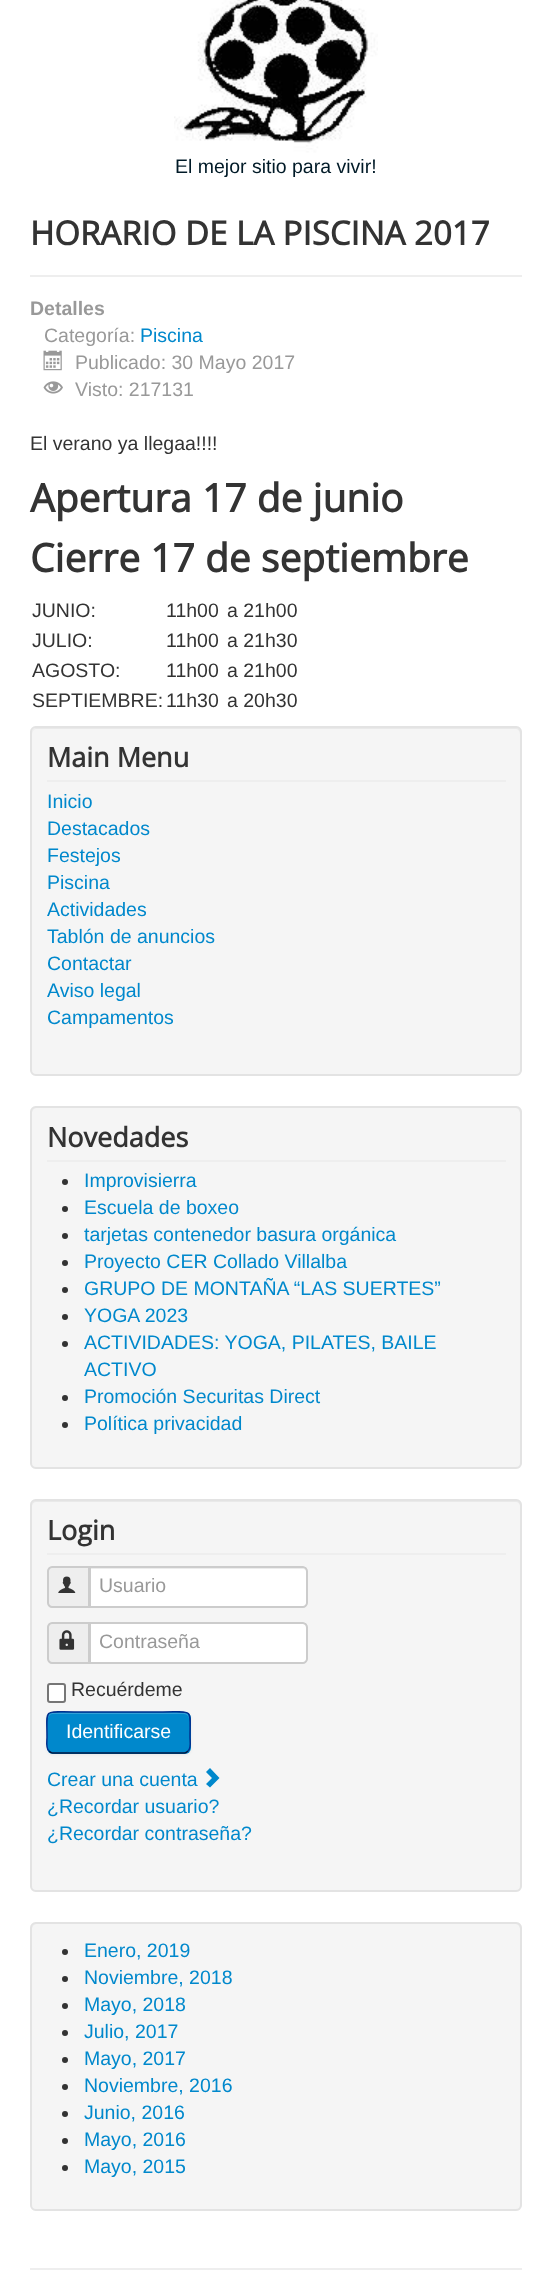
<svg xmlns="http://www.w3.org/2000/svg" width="551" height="2296">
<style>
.a{font:19.5px Liberation Sans;fill:#001a27}
.b{font:bold 33px Open Sans;fill:#333}
.c{font:bold 19.5px Liberation Sans;fill:#999}
.d{font:19.5px Liberation Sans;fill:#999}
.e{font:19.5px Liberation Sans;fill:#08c}
.f{font:19.5px Liberation Sans;fill:#333}
.g{font:bold 39px Open Sans;fill:#333}
.h{font:bold 27px Open Sans;fill:#333}
.i{font:19.5px Liberation Sans;fill:#fff}
</style>
<rect width="100%" height="100%" fill="#fff"/>
<image href="1.png" x="174" y="0" width="204" height="153"/>
<path fill="#eee" d="M30 275h492v2H30z"/>
<image href="2.png" x="43" y="350" width="19" height="21"/>
<image href="3.png" x="43" y="381" width="20" height="13"/>
<rect fill="#f5f5f5" x="30" y="726" width="492" height="350" rx="6"/>
<path fill="#e9e9e9" d="M36 729h480c2 0 4 2 4 5v338c1-1 1-2 1-3v-336c0-3-2-5-5-5h-479c-3 0-5 2-5 5v1c0-3 2-5 4-5z"/>
<rect fill="none" stroke="#e3e3e3" stroke-width="2" x="31" y="727" width="490" height="348" rx="5"/>
<path fill="#eee" d="M47 780h459v2H47z"/>
<rect fill="#f5f5f5" x="30" y="1106" width="492" height="363" rx="6"/>
<path fill="#e9e9e9" d="M36 1108h480c2 0 4 3 4 5v352c1-1 1-2 1-3v-350c0-3-2-5-5-5h-479c-3 0-5 2-5 5v1c0-2 2-5 4-5z"/>
<rect fill="none" stroke="#e3e3e3" stroke-width="2" x="31" y="1107" width="490" height="361" rx="5"/>
<path fill="#eee" d="M47 1160h459v2H47z"/>
<circle fill="#333" cx="65" cy="1182" r="3"/>
<circle fill="#333" cx="65" cy="1209" r="3"/>
<circle fill="#333" cx="65" cy="1236" r="3"/>
<circle fill="#333" cx="65" cy="1263" r="3"/>
<circle fill="#333" cx="65" cy="1290" r="3"/>
<circle fill="#333" cx="65" cy="1317" r="3"/>
<circle fill="#333" cx="65" cy="1344" r="3"/>
<circle fill="#333" cx="65" cy="1398" r="3"/>
<circle fill="#333" cx="65" cy="1425" r="3"/>
<rect fill="#f5f5f5" x="30" y="1499" width="492" height="393" rx="6"/>
<path fill="#e9e9e9" d="M36 1502h480c2 0 4 2 4 4v382c1-1 1-2 1-3v-380c0-3-2-5-5-5h-479c-3 0-5 2-5 5v1c0-2 2-4 4-4z"/>
<rect fill="none" stroke="#e3e3e3" stroke-width="2" x="31" y="1500" width="490" height="391" rx="5"/>
<path fill="#eee" d="M47 1553h459v2H47z"/>
<path fill="#eee" stroke="#ccc" stroke-width="2" d="M52 1567h37v40h-37c-2 0-4-2-4-4v-32c0-2 2-4 4-4z"/>
<image href="4.png" x="58" y="1576" width="18" height="17"/>
<path fill="#fff" d="M89 1566h214c3 0 5 2 5 5v32c0 3-2 5-5 5h-214z"/>
<path fill="#ececec" d="M90 1569h213c2 0 3 1 3 3v-1c0-2-1-3-3-3h-213z"/>
<path fill="none" stroke="#ccc" stroke-width="2" d="M90 1567h213c2 0 4 2 4 4v32c0 2-2 4-4 4h-213z"/>
<path fill="#eee" stroke="#ccc" stroke-width="2" d="M52 1623h37v40h-37c-2 0-4-2-4-4v-32c0-2 2-4 4-4z"/>
<image href="5.png" x="59" y="1630" width="16" height="20"/>
<path fill="#fff" d="M89 1622h214c3 0 5 2 5 5v32c0 3-2 5-5 5h-214z"/>
<path fill="#ececec" d="M90 1624h213l2 1l1 3c0-2 0-5-3-5h-213z"/>
<path fill="none" stroke="#ccc" stroke-width="2" d="M90 1623h213c2 0 4 2 4 4v32c0 2-2 4-4 4h-213z"/>
<rect fill="#fff" stroke="#767676" stroke-width="2" x="48" y="1684" width="17" height="18" rx="2"/>
<rect fill="#0000000d" filter="blur(1.5px)" x="47" y="1713" width="144" height="42" rx="6"/>
<rect fill="#08c" x="47" y="1712" width="144" height="42" rx="6"/>
<path fill="#33a0d6" d="M52 1714h132c3 0 5 3 5 5v-1c0-3-2-5-5-5h-131c-3 0-5 2-5 5v1c0-2 2-5 4-5z"/>
<path fill="none" stroke="#001641" stroke-width="1.5" d="M188 1751c-1 1-2 2-3.5 2h-132c-1.5 0-2.5-1-3.5-2"/>
<path fill="none" stroke="#002f8d" stroke-width="1.5" d="M49 1751c-3.5-3-2-10-2-13.5c0-30-4.5-25.5 27.5-25.5h88c32 0 27.5-4.5 27.5 25.5c0 3.5 1.5 10.5-2 13.5"/>
<path fill="#08c" d="M210 1768l9.5 10l-9.5 9.5l-4-3.5l6-6l-6-6z"/>
<rect fill="#f5f5f5" x="30" y="1922" width="492" height="289" rx="6"/>
<path fill="#e9e9e9" d="M36 1924h480c2 0 4 3 4 5v277l-1 3c1-1 2-3 2-4v-277c0-3-2-5-5-5h-479c-3 0-5 2-5 5v1c0-2 2-5 4-5z"/>
<rect fill="none" stroke="#e3e3e3" stroke-width="2" x="31" y="1923" width="490" height="287" rx="5"/>
<circle fill="#333" cx="65" cy="1952" r="3"/>
<circle fill="#333" cx="65" cy="1979" r="3"/>
<circle fill="#333" cx="65" cy="2006" r="3"/>
<circle fill="#333" cx="65" cy="2033" r="3"/>
<circle fill="#333" cx="65" cy="2060" r="3"/>
<circle fill="#333" cx="65" cy="2087" r="3"/>
<circle fill="#333" cx="65" cy="2114" r="3"/>
<circle fill="#333" cx="65" cy="2141" r="3"/>
<circle fill="#333" cx="65" cy="2168" r="3"/>
<path fill="#eee" d="M30 2268h492v2H30z"/>
<text class="a" x="175" y="173">El mejor sitio para vivir!</text>
<text class="b" x="30" y="245">HORARIO DE LA PISCINA 2017</text>
<text class="c" x="30" y="315">Detalles</text>
<text class="d" x="44" y="342">Categoría:</text>
<text class="e" x="140" y="342">Piscina</text>
<text class="d" x="75" y="369">Publicado: 30 Mayo 2017</text>
<text class="d" x="75" y="396">Visto: 217131</text>
<text class="f" x="30" y="450">El verano ya llegaa!!!!</text>
<text class="g" x="30" y="512">Apertura 17 de junio</text>
<text class="g" x="30" y="572">Cierre 17 de septiembre</text>
<text class="f" x="32" y="617">JUNIO:</text>
<text class="f" x="166" y="617">11h00</text>
<text class="f" x="227" y="617">a 21h00</text>
<text class="f" x="32" y="647">JULIO:</text>
<text class="f" x="166" y="647">11h00</text>
<text class="f" x="227" y="647">a 21h30</text>
<text class="f" x="32" y="677">AGOSTO:</text>
<text class="f" x="166" y="677">11h00</text>
<text class="f" x="227" y="677">a 21h00</text>
<text class="f" x="32" y="707">SEPTIEMBRE:</text>
<text class="f" x="166" y="707">11h30</text>
<text class="f" x="227" y="707">a 20h30</text>
<text class="h" x="47" y="767">Main Menu</text>
<text class="e" x="47" y="808">Inicio</text>
<text class="e" x="47" y="835">Destacados</text>
<text class="e" x="47" y="862">Festejos</text>
<text class="e" x="47" y="889">Piscina</text>
<text class="e" x="47" y="916">Actividades</text>
<text class="e" x="47" y="943">Tablón de anuncios</text>
<text class="e" x="47" y="970">Contactar</text>
<text class="e" x="47" y="997">Aviso legal</text>
<text class="e" x="47" y="1024">Campamentos</text>
<text class="h" x="47" y="1147">Novedades</text>
<text class="e" x="84" y="1187">Improvisierra</text>
<text class="e" x="84" y="1214">Escuela de boxeo</text>
<text class="e" x="84" y="1241">tarjetas contenedor basura orgánica</text>
<text class="e" x="84" y="1268">Proyecto CER Collado Villalba</text>
<text class="e" x="84" y="1295">GRUPO DE MONTAÑA “LAS SUERTES”</text>
<text class="e" x="84" y="1322">YOGA 2023</text>
<text class="e" x="84" y="1349">ACTIVIDADES: YOGA, PILATES, BAILE</text>
<text class="e" x="84" y="1376">ACTIVO</text>
<text class="e" x="84" y="1403">Promoción Securitas Direct</text>
<text class="e" x="84" y="1430">Política privacidad</text>
<text class="h" x="47" y="1540">Login</text>
<text class="d" x="99" y="1592">Usuario</text>
<text class="d" x="99" y="1648">Contraseña</text>
<text class="f" x="71" y="1696">Recuérdeme</text>
<text class="i" x="66" y="1738">Identificarse</text>
<text class="e" x="47" y="1786">Crear una cuenta</text>
<text class="e" x="47" y="1813">¿Recordar usuario?</text>
<text class="e" x="47" y="1840">¿Recordar contraseña?</text>
<text class="e" x="84" y="1957">Enero, 2019</text>
<text class="e" x="84" y="1984">Noviembre, 2018</text>
<text class="e" x="84" y="2011">Mayo, 2018</text>
<text class="e" x="84" y="2038">Julio, 2017</text>
<text class="e" x="84" y="2065">Mayo, 2017</text>
<text class="e" x="84" y="2092">Noviembre, 2016</text>
<text class="e" x="84" y="2119">Junio, 2016</text>
<text class="e" x="84" y="2146">Mayo, 2016</text>
<text class="e" x="84" y="2173">Mayo, 2015</text>
</svg>
